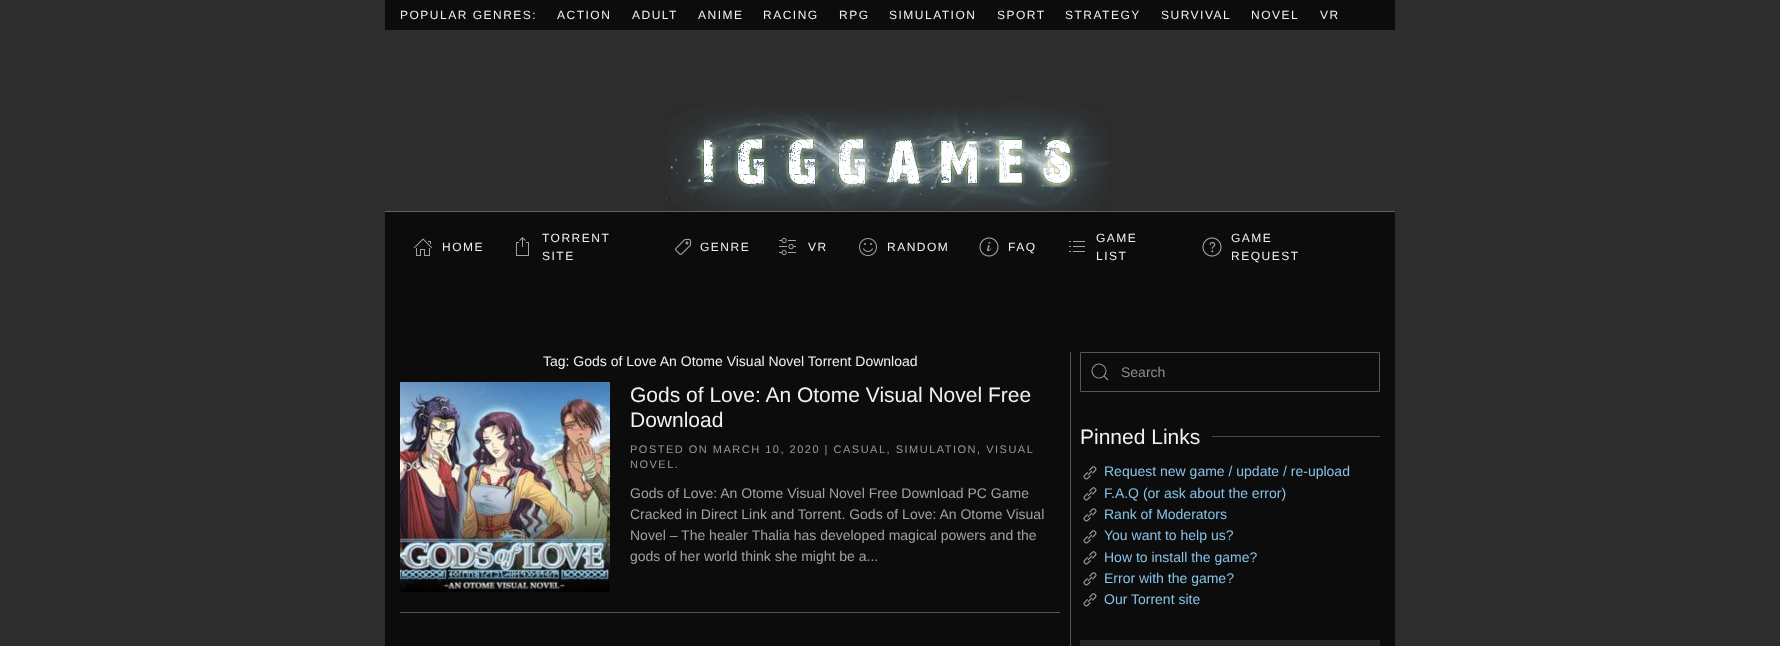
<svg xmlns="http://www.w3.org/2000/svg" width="1780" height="646">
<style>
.a{font:12px Liberation Sans;letter-spacing:1.5px;fill:#f1f1f1}
.b{font:14px Liberation Sans;fill:#f1f1f1}
.c{font:21px Liberation Sans;fill:#f1f1f1}
.d{font:11px Liberation Sans;letter-spacing:1.5px;fill:#999}
.e{font:14px Liberation Sans;fill:#a2a2a2}
.f{font:14px Liberation Sans;fill:#8e8e8e}
.g{font:14px Liberation Sans;fill:#88c2e6}
</style>
<rect width="100%" height="100%" fill="#2d2d2d"/>
<path fill="#0c0c0c" d="M385 0h1010v30H385z"/>
<path fill="#636363" d="M385 211h1010v1H385z"/>
<image href="1.png" x="666" y="102" width="445" height="109"/>
<path fill="#0c0c0c" d="M385 212h1010v434H385z"/>
<image href="2.png" x="413" y="238" width="20" height="18"/>
<image href="3.png" x="516" y="237" width="13" height="19"/>
<image href="4.png" x="675" y="238" width="17" height="17"/>
<image href="5.png" x="779" y="237" width="17" height="19"/>
<image href="6.png" x="859" y="238" width="18" height="18"/>
<image href="7.png" x="979" y="237" width="20" height="20"/>
<image href="8.png" x="1069" y="241" width="16" height="11"/>
<image href="9.png" x="1202" y="237" width="20" height="20"/>
<path fill="#535353" d="M400 612h660v1H400z"/>
<image href="10.png" x="400" y="382" width="210" height="210"/>
<path fill="#535353" d="M1070 352h1v294H1070z"/>
<path fill="none" stroke="#565656" d="M1080.5 352.5h299v39H1080.5z"/>
<circle fill="none" stroke="#8e8e8e" stroke-width="1.1" cx="1099" cy="371" r="7"/>
<path fill="none" stroke="#8e8e8e" stroke-width="1.1" d="M1104 376l4 4z"/>
<path fill="#484848" d="M1212 436h168v1H1212z"/>
<image href="11.png" x="1083" y="466" width="14" height="14"/>
<image href="11.png" x="1083" y="487" width="14" height="14"/>
<image href="11.png" x="1083" y="508" width="14" height="14"/>
<image href="11.png" x="1083" y="530" width="14" height="14"/>
<image href="11.png" x="1083" y="551" width="14" height="14"/>
<image href="11.png" x="1083" y="572" width="14" height="14"/>
<image href="11.png" x="1083" y="593" width="14" height="14"/>
<path fill="#262626" d="M1080 640h300v6H1080z"/>
<text class="a" x="400" y="19">POPULAR GENRES:</text>
<text class="a" x="557" y="19">ACTION</text>
<text class="a" x="632" y="19">ADULT</text>
<text class="a" x="698" y="19">ANIME</text>
<text class="a" x="763" y="19">RACING</text>
<text class="a" x="839" y="19">RPG</text>
<text class="a" x="889" y="19">SIMULATION</text>
<text class="a" x="997" y="19">SPORT</text>
<text class="a" x="1065" y="19">STRATEGY</text>
<text class="a" x="1161" y="19">SURVIVAL</text>
<text class="a" x="1251" y="19">NOVEL</text>
<text class="a" x="1320" y="19">VR</text>
<text class="a" x="442" y="251">HOME</text>
<text class="a" x="542" y="242">TORRENT</text>
<text class="a" x="542" y="260">SITE</text>
<text class="a" x="700" y="251">GENRE</text>
<text class="a" x="808" y="251">VR</text>
<text class="a" x="887" y="251">RANDOM</text>
<text class="a" x="1008" y="251">FAQ</text>
<text class="a" x="1096" y="242">GAME</text>
<text class="a" x="1096" y="260">LIST</text>
<text class="a" x="1231" y="242">GAME</text>
<text class="a" x="1231" y="260">REQUEST</text>
<text class="b" x="543" y="366">Tag: Gods of Love An Otome Visual Novel Torrent Download</text>
<text class="c" x="630" y="402">Gods of Love: An Otome Visual Novel Free</text>
<text class="c" x="630" y="427">Download</text>
<text class="d" x="630" y="453">POSTED ON MARCH 10, 2020 | CASUAL, SIMULATION, VISUAL</text>
<text class="d" x="630" y="468">NOVEL.</text>
<text class="e" x="630" y="498">Gods of Love: An Otome Visual Novel Free Download PC Game</text>
<text class="e" x="630" y="519">Cracked in Direct Link and Torrent. Gods of Love: An Otome Visual</text>
<text class="e" x="630" y="540">Novel – The healer Thalia has developed magical powers and the</text>
<text class="e" x="630" y="561">gods of her world think she might be a...</text>
<text class="f" x="1121" y="377">Search</text>
<text class="c" x="1080" y="444">Pinned Links</text>
<text class="g" x="1104" y="476">Request new game / update / re-upload</text>
<text class="g" x="1104" y="498">F.A.Q (or ask about the error)</text>
<text class="g" x="1104" y="519">Rank of Moderators</text>
<text class="g" x="1104" y="540">You want to help us?</text>
<text class="g" x="1104" y="562">How to install the game?</text>
<text class="g" x="1104" y="583">Error with the game?</text>
<text class="g" x="1104" y="604">Our Torrent site</text>
</svg>
